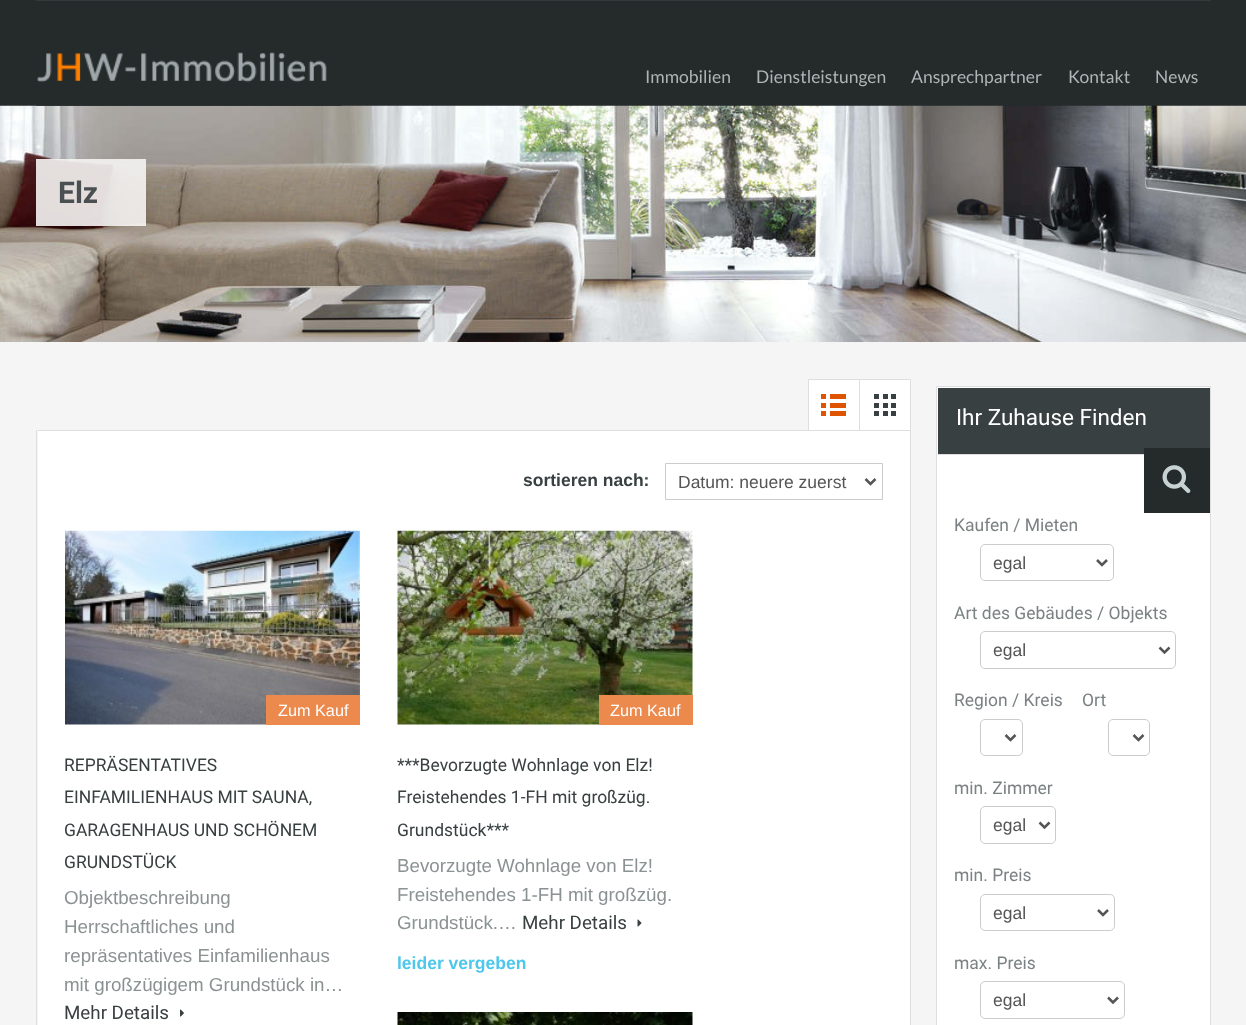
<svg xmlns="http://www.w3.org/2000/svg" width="1246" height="1025">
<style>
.a{font:17.5px Lato;fill:#afb4b5}
.b{font:bold 30px Roboto;fill:#4a5051}
.c{font:bold 17.5px Liberation Sans;fill:#394041}
.d{font:17.5px Liberation Sans;fill:#555}
.e{font:16.25px Liberation Sans;fill:#fff}
.f{font:17.5px Roboto;fill:#394041}
.g{font:18.75px Liberation Sans;fill:#8b9293}
.h{font:18.75px Roboto;fill:#394041}
.i{font:bold 17.5px Liberation Sans;fill:#4dc7ec}
.j{font:22.5px Roboto;fill:#fff}
.k{font:17.5px Roboto;fill:#7b8283}
</style>
<defs>
<clipPath id="clip1"><path d="M398 850h295v88H398z"/></clipPath>
</defs>
<rect width="100%" height="100%" fill="#f5f5f5"/>
<path fill="#252a2b" d="M0 0h1246v106H0z"/>
<path fill="#343a3b" d="M36 0h1175v1H36z"/>
<image href="2.png" x="0" y="105" width="1246" height="237"/>
<image href="1.png" x="36" y="52" width="306" height="54"/>
<path fill="#f5f4f3e6" d="M36 159h110v67H36z"/>
<path fill="#dedede" d="M910 430h1v595H910z"/>
<path fill="#dedede" d="M36 430h1v595H36z"/>
<path fill="#fff" d="M38 431h872v594H38z"/>
<path fill="#dedede" d="M38 430h770v1H38z"/>
<path fill="#fff" stroke="#dedede" d="M808.5 379.5h102v51H808.5z"/>
<path fill="#dedede" d="M859 380h1v50H859z"/>
<image href="3.png" x="821" y="394" width="25" height="22"/>
<image href="4.png" x="874" y="394" width="22" height="22"/>
<path fill="none" stroke="#ccc" d="M665.5 463.5h217v36H665.5z"/>
<path fill="none" stroke="#555" stroke-width="2.5" d="M865.5 479l5 5l5-5"/>
<image href="5.png" x="65" y="530" width="295" height="195"/>
<path fill="#ec894d" d="M266 695h94v30H266z"/>
<image href="6.png" x="180" y="1009" width="4" height="8"/>
<image href="7.png" x="397" y="530" width="296" height="195"/>
<path fill="#ec894d" d="M599 695h94v30H599z"/>
<image href="8.png" x="637" y="919" width="5" height="8"/>
<image href="9.png" x="397" y="1012" width="296" height="13"/>
<path fill="#fff" stroke="#dedede" d="M936.5 386.5h274v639H936.5z"/>
<path fill="#394041" d="M938 388h272v66H938z"/>
<path fill="#dedede" d="M938 454h206v1H938z"/>
<path fill="#252a2b" d="M1144 448h66v65H1144z"/>
<image href="10.png" x="1162" y="465" width="29" height="28"/>
<rect fill="none" stroke="#ccc" x="980.5" y="544.5" width="133" height="36" rx="4.5"/>
<path fill="none" stroke="#555" stroke-width="2.5" d="M1097 560l5 5l5-5"/>
<rect fill="none" stroke="#ccc" x="980.5" y="631.5" width="195" height="37" rx="4.5"/>
<path fill="none" stroke="#555" stroke-width="2.5" d="M1159.5 647.5l5 5l5-5"/>
<rect fill="none" stroke="#ccc" x="980.5" y="719.5" width="42" height="36" rx="4.5"/>
<path fill="none" stroke="#555" stroke-width="2.5" d="M1005.5 735l5 5l5-5"/>
<rect fill="none" stroke="#ccc" x="1108.5" y="719.5" width="41" height="36" rx="4.5"/>
<path fill="none" stroke="#555" stroke-width="2.5" d="M1133.5 735l5 5l5-5"/>
<rect fill="none" stroke="#ccc" x="980.5" y="806.5" width="75" height="37" rx="4.5"/>
<path fill="none" stroke="#555" stroke-width="2.5" d="M1039.5 822.5l5 5l5-5"/>
<rect fill="none" stroke="#ccc" x="980.5" y="894.5" width="134" height="36" rx="4.5"/>
<path fill="none" stroke="#555" stroke-width="2.5" d="M1098 910l5 5l5-5"/>
<rect fill="none" stroke="#ccc" x="980.5" y="981.5" width="144" height="37" rx="4.5"/>
<path fill="none" stroke="#555" stroke-width="2.5" d="M1108 997.5l5 5l5-5"/>
<text class="a" x="645" y="83">Immobilien</text>
<text class="a" x="756" y="83">Dienstleistungen</text>
<text class="a" x="911" y="83">Ansprechpartner</text>
<text class="a" x="1068" y="83">Kontakt</text>
<text class="a" x="1155" y="83">News</text>
<text class="b" x="58" y="203">Elz</text>
<text class="c" x="523" y="486">sortieren nach:</text>
<text class="d" x="678" y="488">Datum: neuere zuerst</text>
<text class="e" x="278" y="716">Zum Kauf</text>
<text class="f" x="64" y="771">REPRÄSENTATIVES</text>
<text class="f" x="64" y="803">EINFAMILIENHAUS MIT SAUNA,</text>
<text class="f" x="64" y="836">GARAGENHAUS UND SCHÖNEM</text>
<text class="f" x="64" y="868">GRUNDSTÜCK</text>
<text class="g" x="64" y="904">Objektbeschreibung</text>
<text class="g" x="64" y="933">Herrschaftliches und</text>
<text class="g" x="64" y="962">repräsentatives Einfamilienhaus</text>
<text class="g" x="64" y="991">mit großzügigem Grundstück in…</text>
<text class="h" x="64" y="1019">Mehr Details</text>
<text class="e" x="610" y="716">Zum Kauf</text>
<text class="f" x="397" y="771">***Bevorzugte Wohnlage von Elz!</text>
<text class="f" x="397" y="803">Freistehendes 1-FH mit großzüg.</text>
<text class="f" x="397" y="836">Grundstück***</text>
<text class="g" x="397" y="872">Bevorzugte Wohnlage von Elz!</text>
<text class="g" x="397" y="901">Freistehendes 1-FH mit großzüg.</text>
<g clip-path="url(#clip1)">
<text class="g" x="397" y="929">Grundstück.…</text>
</g>
<text class="h" x="522" y="929">Mehr Details</text>
<text class="i" x="397" y="969">leider vergeben</text>
<text class="j" x="956" y="425">Ihr Zuhause Finden</text>
<text class="k" x="954" y="531">Kaufen / Mieten</text>
<text class="d" x="993" y="569">egal</text>
<text class="k" x="954" y="619">Art des Gebäudes / Objekts</text>
<text class="d" x="993" y="656">egal</text>
<text class="k" x="954" y="706">Region / Kreis</text>
<text class="k" x="1082" y="706">Ort</text>
<text class="k" x="954" y="794">min. Zimmer</text>
<text class="d" x="993" y="831">egal</text>
<text class="k" x="954" y="881">min. Preis</text>
<text class="d" x="993" y="919">egal</text>
<text class="k" x="954" y="969">max. Preis</text>
<text class="d" x="993" y="1006">egal</text>
</svg>
